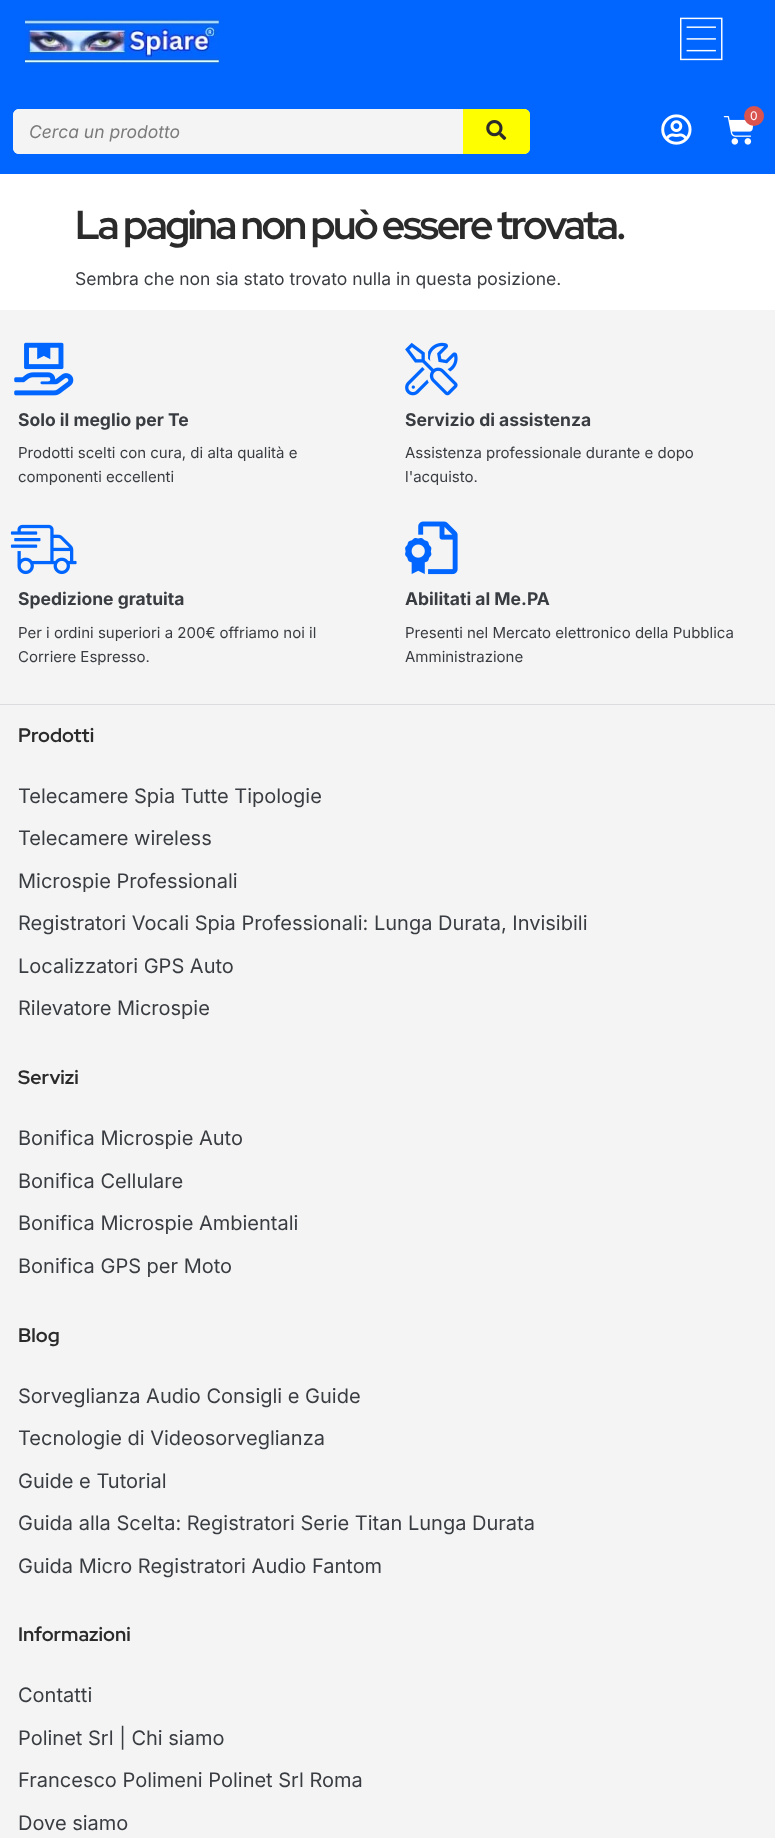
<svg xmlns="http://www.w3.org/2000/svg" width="775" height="1838">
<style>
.a{font:12px Inter;fill:#fff}
.b{font:italic 17.5px Inter;fill:#7b7b7b}
.c{font:bold 40.5px Red Hat Display;letter-spacing:-2.5px;fill:#2b2b2b}
.d{font:17.5px Inter;fill:#393c41}
.e{font:bold 17.5px Inter;fill:#393c41}
.f{font:15px Inter;fill:#393c41}
.g{font:bold 19.5px Red Hat Display;fill:#2b2b2b}
.h{font:20px Inter;fill:#393c41}
</style>
<rect width="100%" height="100%" fill="#fff"/>
<path fill="#06f" d="M0 0h775v174H0z"/>
<image href="1.png" x="25" y="18" width="194" height="47"/>
<image href="2.png" x="680" y="17" width="43" height="44"/>
<image href="3.png" x="661" y="114" width="31" height="31"/>
<image href="4.png" x="723" y="116" width="31" height="29"/>
<circle fill="#d9534f" cx="754" cy="116" r="10"/>
<rect fill="#f1f2f3" x="13" y="109" width="517" height="45" rx="6"/>
<rect fill="#f4f4f4" stroke="#f4f4f4" x="13.5" y="109.5" width="449" height="44" rx="5.5"/>
<path fill="#fefe01" d="M463 109h61c3.5 0 6 2.5 6 6v33c0 3.5-2.5 6-6 6h-61z"/>
<image href="5.png" x="486" y="120" width="21" height="20"/>
<path fill="#f4f4f4" d="M0 310h775v1528H0z"/>
<path fill="#dcdcde" d="M0 704h775v1H0z"/>
<image href="6.png" x="14" y="342" width="60" height="54"/>
<image href="7.png" x="405" y="342" width="53" height="54"/>
<image href="8.png" x="10" y="524" width="67" height="51"/>
<image href="9.png" x="405" y="521" width="53" height="54"/>
<text class="a" x="750" y="120">0</text>
<text class="b" x="29" y="138">Cerca un prodotto</text>
<text class="c" x="75" y="239">La pagina non può essere trovata.</text>
<text class="d" x="75" y="285">Sembra che non sia stato trovato nulla in questa posizione.</text>
<text class="e" x="18" y="426">Solo il meglio per Te</text>
<text class="f" x="18" y="458">Prodotti scelti con cura, di alta qualità e</text>
<text class="f" x="18" y="482">componenti eccellenti</text>
<text class="e" x="405" y="426">Servizio di assistenza</text>
<text class="f" x="405" y="458">Assistenza professionale durante e dopo</text>
<text class="f" x="405" y="482">l'acquisto.</text>
<text class="e" x="18" y="605">Spedizione gratuita</text>
<text class="f" x="18" y="638">Per i ordini superiori a 200€ offriamo noi il</text>
<text class="f" x="18" y="662">Corriere Espresso.</text>
<text class="e" x="405" y="605">Abilitati al Me.PA</text>
<text class="f" x="405" y="638">Presenti nel Mercato elettronico della Pubblica</text>
<text class="f" x="405" y="662">Amministrazione</text>
<text class="g" x="18" y="742">Prodotti</text>
<text class="h" x="18" y="803">Telecamere Spia Tutte Tipologie</text>
<text class="h" x="18" y="845">Telecamere wireless</text>
<text class="h" x="18" y="888">Microspie Professionali</text>
<text class="h" x="18" y="930">Registratori Vocali Spia Professionali: Lunga Durata, Invisibili</text>
<text class="h" x="18" y="973">Localizzatori GPS Auto</text>
<text class="h" x="18" y="1015">Rilevatore Microspie</text>
<text class="g" x="18" y="1084">Servizi</text>
<text class="h" x="18" y="1145">Bonifica Microspie Auto</text>
<text class="h" x="18" y="1188">Bonifica Cellulare</text>
<text class="h" x="18" y="1230">Bonifica Microspie Ambientali</text>
<text class="h" x="18" y="1273">Bonifica GPS per Moto</text>
<text class="g" x="18" y="1342">Blog</text>
<text class="h" x="18" y="1403">Sorveglianza Audio Consigli e Guide</text>
<text class="h" x="18" y="1445">Tecnologie di Videosorveglianza</text>
<text class="h" x="18" y="1488">Guide e Tutorial</text>
<text class="h" x="18" y="1530">Guida alla Scelta: Registratori Serie Titan Lunga Durata</text>
<text class="h" x="18" y="1573">Guida Micro Registratori Audio Fantom</text>
<text class="g" x="18" y="1641">Informazioni</text>
<text class="h" x="18" y="1702">Contatti</text>
<text class="h" x="18" y="1745">Polinet Srl | Chi siamo</text>
<text class="h" x="18" y="1787">Francesco Polimeni Polinet Srl Roma</text>
<text class="h" x="18" y="1830">Dove siamo</text>
</svg>
